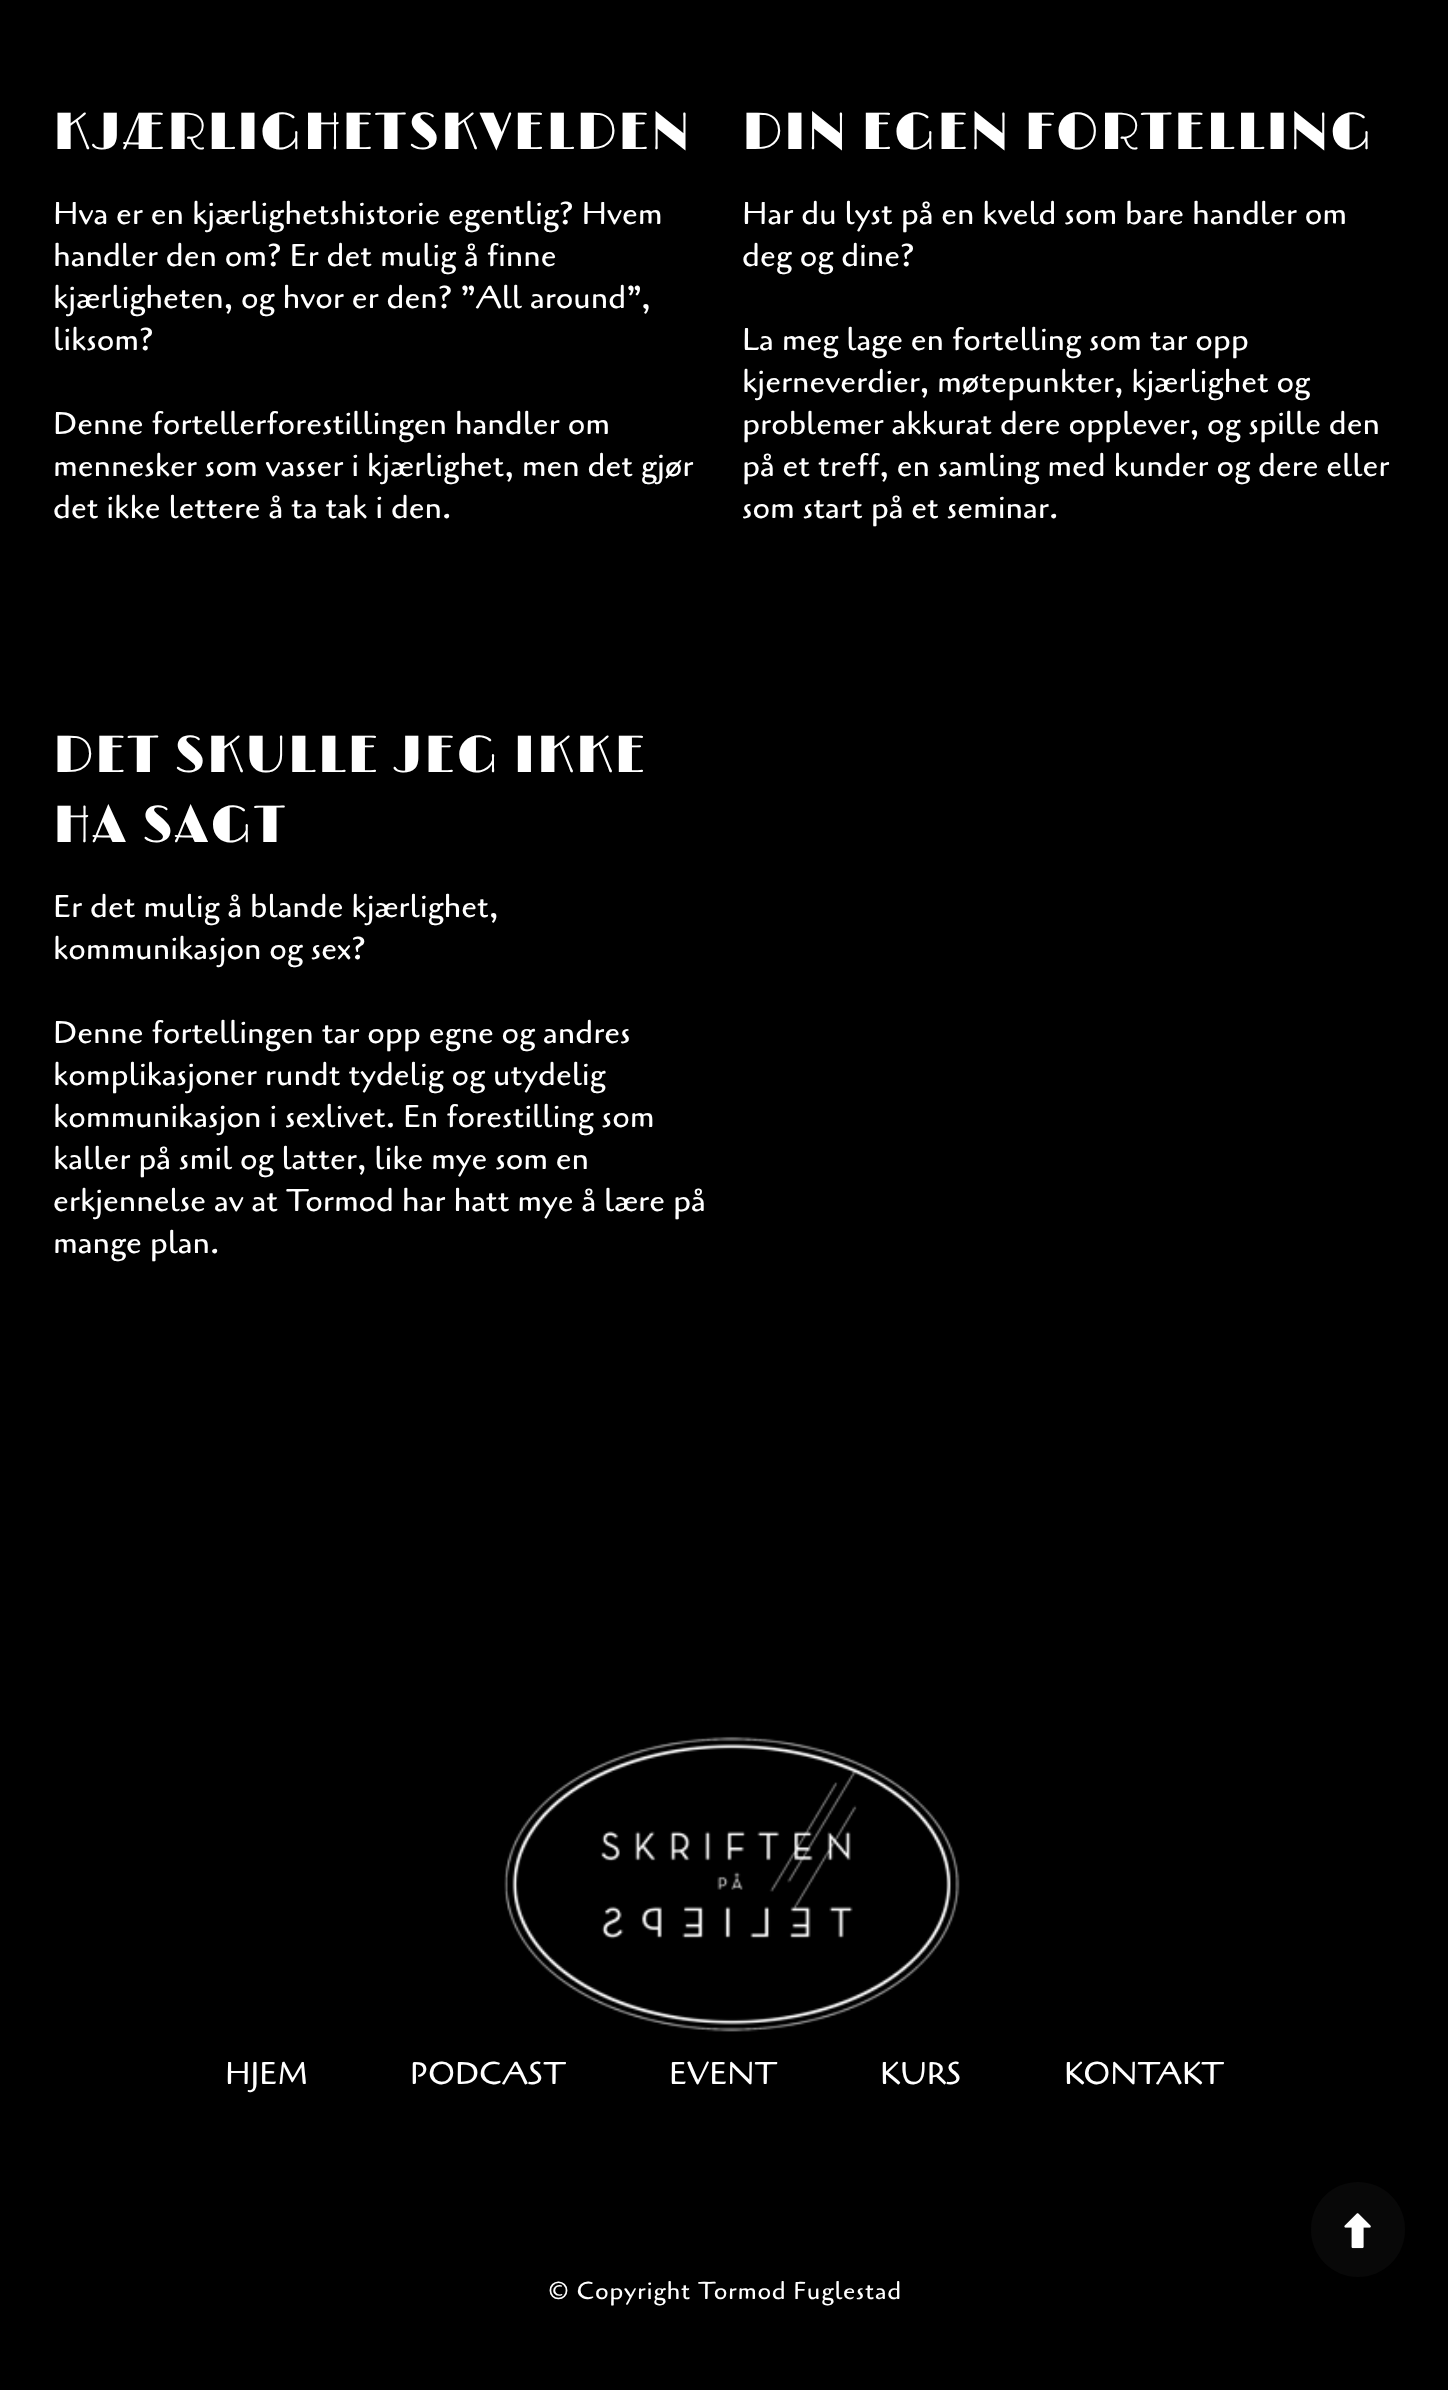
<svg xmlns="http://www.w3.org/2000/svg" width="1448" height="2390">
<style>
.a{font:300 52.5px Limelight;letter-spacing:1.75px;fill:#fff}
.b{font:31.5px Cagliostro;fill:#fff}
.c{font:24.5px Cagliostro;letter-spacing:0.75px;fill:#fff}
</style>
<rect width="100%" height="100%" fill="#000"/>
<image href="1.png" x="504" y="1736" width="456" height="296"/>
<rect fill="#080808" x="1311" y="2182" width="94" height="95" rx="47"/>
<image href="2.png" x="1344" y="2213" width="27" height="36"/>
<text class="a" x="53" y="149">KJÆRLIGHETSKVELDEN</text>
<text class="b" x="53" y="224">Hva er en kjærlighetshistorie egentlig? Hvem</text>
<text class="b" x="53" y="266">handler den om? Er det mulig å finne</text>
<text class="b" x="53" y="308">kjærligheten, og hvor er den? ”All around”,</text>
<text class="b" x="53" y="350">liksom?</text>
<text class="b" x="53" y="434">Denne fortellerforestillingen handler om</text>
<text class="b" x="53" y="476">mennesker som vasser i kjærlighet, men det gjør</text>
<text class="b" x="53" y="518">det ikke lettere å ta tak i den.</text>
<text class="a" x="742" y="149">DIN EGEN FORTELLING</text>
<text class="b" x="742" y="224">Har du lyst på en kveld som bare handler om</text>
<text class="b" x="742" y="266">deg og dine?</text>
<text class="b" x="742" y="350">La meg lage en fortelling som tar opp</text>
<text class="b" x="742" y="392">kjerneverdier, møtepunkter, kjærlighet og</text>
<text class="b" x="742" y="434">problemer akkurat dere opplever, og spille den</text>
<text class="b" x="742" y="476">på et treff, en samling med kunder og dere eller</text>
<text class="b" x="742" y="518">som start på et seminar.</text>
<text class="a" x="53" y="772">DET SKULLE JEG IKKE</text>
<text class="a" x="53" y="842">HA SAGT</text>
<text class="b" x="53" y="917">Er det mulig å blande kjærlighet,</text>
<text class="b" x="53" y="959">kommunikasjon og sex?</text>
<text class="b" x="53" y="1043">Denne fortellingen tar opp egne og andres</text>
<text class="b" x="53" y="1085">komplikasjoner rundt tydelig og utydelig</text>
<text class="b" x="53" y="1127">kommunikasjon i sexlivet. En forestilling som</text>
<text class="b" x="53" y="1169">kaller på smil og latter, like mye som en</text>
<text class="b" x="53" y="1211">erkjennelse av at Tormod har hatt mye å lære på</text>
<text class="b" x="53" y="1253">mange plan.</text>
<text class="b" x="225" y="2084">HJEM</text>
<text class="b" x="410" y="2084">PODCAST</text>
<text class="b" x="669" y="2084">EVENT</text>
<text class="b" x="880" y="2084">KURS</text>
<text class="b" x="1064" y="2084">KONTAKT</text>
<text class="c" x="548" y="2299">© Copyright Tormod Fuglestad</text>
</svg>
